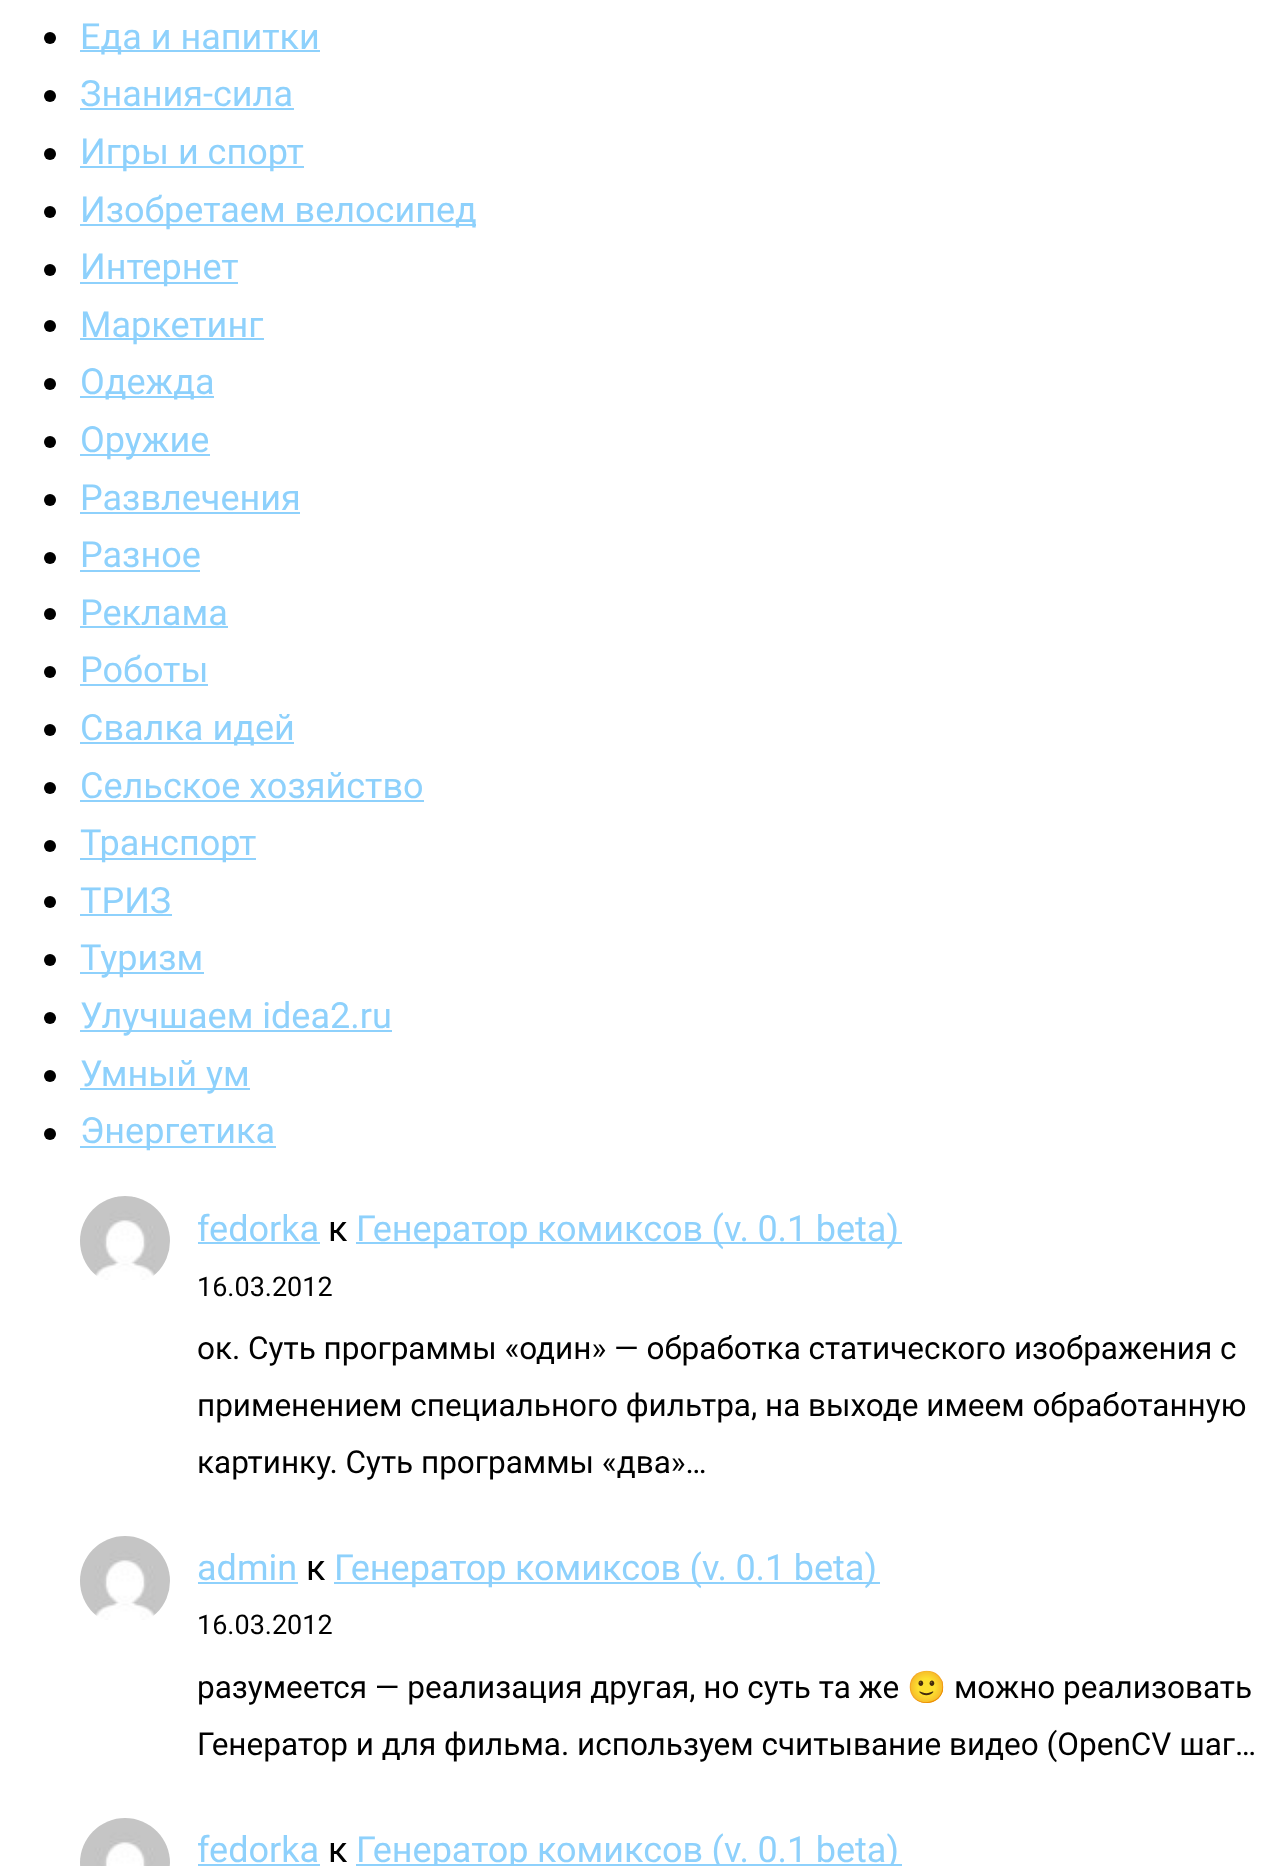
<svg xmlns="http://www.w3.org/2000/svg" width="1278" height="1866">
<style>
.a{font:36px Roboto;fill:#8ed1fc}
.b{font:36px Roboto;fill:#000}
.c{font:27px Roboto;fill:#000}
.d{font:31.5px Roboto;fill:#000}
.e{font:31.5px Noto Color Emoji;fill:#000}
</style>
<rect width="100%" height="100%" fill="#fff"/>
<circle fill="#000" cx="50" cy="38" r="6"/>
<path fill="#8ed1fc" d="M80 50h240v2H80z"/>
<circle fill="#000" cx="50" cy="96" r="6"/>
<path fill="#8ed1fc" d="M80 108h214v2H80z"/>
<circle fill="#000" cx="50" cy="154" r="6"/>
<path fill="#8ed1fc" d="M80 166h224v2H80z"/>
<circle fill="#000" cx="50" cy="212" r="6"/>
<path fill="#8ed1fc" d="M80 224h396v2H80z"/>
<circle fill="#000" cx="50" cy="270" r="6"/>
<path fill="#8ed1fc" d="M80 282h158v2H80z"/>
<circle fill="#000" cx="50" cy="326" r="6"/>
<path fill="#8ed1fc" d="M80 338h184v2H80z"/>
<circle fill="#000" cx="50" cy="384" r="6"/>
<path fill="#8ed1fc" d="M80 396h134v2H80z"/>
<circle fill="#000" cx="50" cy="442" r="6"/>
<path fill="#8ed1fc" d="M80 454h130v2H80z"/>
<circle fill="#000" cx="50" cy="500" r="6"/>
<path fill="#8ed1fc" d="M80 512h220v2H80z"/>
<circle fill="#000" cx="50" cy="558" r="6"/>
<path fill="#8ed1fc" d="M80 570h120v2H80z"/>
<circle fill="#000" cx="50" cy="614" r="6"/>
<path fill="#8ed1fc" d="M80 626h148v2H80z"/>
<circle fill="#000" cx="50" cy="672" r="6"/>
<path fill="#8ed1fc" d="M80 684h128v2H80z"/>
<circle fill="#000" cx="50" cy="730" r="6"/>
<path fill="#8ed1fc" d="M80 742h214v2H80z"/>
<circle fill="#000" cx="50" cy="788" r="6"/>
<path fill="#8ed1fc" d="M80 800h344v2H80z"/>
<circle fill="#000" cx="50" cy="846" r="6"/>
<path fill="#8ed1fc" d="M80 858h176v2H80z"/>
<circle fill="#000" cx="50" cy="902" r="6"/>
<path fill="#8ed1fc" d="M80 914h92v2H80z"/>
<circle fill="#000" cx="50" cy="960" r="6"/>
<path fill="#8ed1fc" d="M80 972h124v2H80z"/>
<circle fill="#000" cx="50" cy="1018" r="6"/>
<path fill="#8ed1fc" d="M80 1030h312v2H80z"/>
<circle fill="#000" cx="50" cy="1076" r="6"/>
<path fill="#8ed1fc" d="M80 1088h170v2H80z"/>
<circle fill="#000" cx="50" cy="1134" r="6"/>
<path fill="#8ed1fc" d="M80 1146h196v2H80z"/>
<image href="1.png" x="80" y="1196" width="90" height="84"/>
<path fill="#8ed1fc" d="M198 1242h122v2H198z"/>
<path fill="#8ed1fc" d="M356 1242h546v2H356z"/>
<image href="2.png" x="80" y="1536" width="90" height="84"/>
<path fill="#8ed1fc" d="M198 1582h100v2H198z"/>
<path fill="#8ed1fc" d="M334 1582h546v2H334z"/>
<image href="3.png" x="80" y="1818" width="90" height="48"/>
<path fill="#8ed1fc" d="M198 1864h122v2H198z"/>
<path fill="#8ed1fc" d="M356 1864h546v2H356z"/>
<text class="a" x="80" y="49">Еда и напитки</text>
<text class="a" x="80" y="106">Знания-сила</text>
<text class="a" x="80" y="164">Игры и спорт</text>
<text class="a" x="80" y="222">Изобретаем велосипед</text>
<text class="a" x="80" y="279">Интернет</text>
<text class="a" x="80" y="337">Маркетинг</text>
<text class="a" x="80" y="394">Одежда</text>
<text class="a" x="80" y="452">Оружие</text>
<text class="a" x="80" y="510">Развлечения</text>
<text class="a" x="80" y="567">Разное</text>
<text class="a" x="80" y="625">Реклама</text>
<text class="a" x="80" y="682">Роботы</text>
<text class="a" x="80" y="740">Свалка идей</text>
<text class="a" x="80" y="798">Сельское хозяйство</text>
<text class="a" x="80" y="855">Транспорт</text>
<text class="a" x="80" y="913">ТРИЗ</text>
<text class="a" x="80" y="970">Туризм</text>
<text class="a" x="80" y="1028">Улучшаем idea2.ru</text>
<text class="a" x="80" y="1086">Умный ум</text>
<text class="a" x="80" y="1143">Энергетика</text>
<text class="a" x="197" y="1241">fedorka</text>
<text class="b" x="328" y="1241">к</text>
<text class="a" x="356" y="1241" word-spacing="-0.5">Генератор комиксов (v. 0.1 beta)</text>
<text class="c" x="197" y="1296">16.03.2012</text>
<text class="d" x="197" y="1359">ок. Суть программы «один» — обработка статического изображения с</text>
<text class="d" x="197" y="1416">применением специального фильтра, на выходе имеем обработанную</text>
<text class="d" x="197" y="1473">картинку. Суть программы «два»…</text>
<text class="a" x="197" y="1580">admin</text>
<text class="b" x="306" y="1580">к</text>
<text class="a" x="334" y="1580" word-spacing="-0.5">Генератор комиксов (v. 0.1 beta)</text>
<text class="c" x="197" y="1634">16.03.2012</text>
<text class="d" x="197" y="1698">разумеется — реализация другая, но суть та же</text>
<text class="e" x="907" y="1698">🙂</text>
<text class="d" x="954" y="1698">можно реализовать</text>
<text class="d" x="197" y="1755">Генератор и для фильма. используем считывание видео (OpenCV шаг…</text>
<text class="a" x="197" y="1862">fedorka</text>
<text class="b" x="328" y="1862">к</text>
<text class="a" x="356" y="1862" word-spacing="-0.5">Генератор комиксов (v. 0.1 beta)</text>
</svg>
